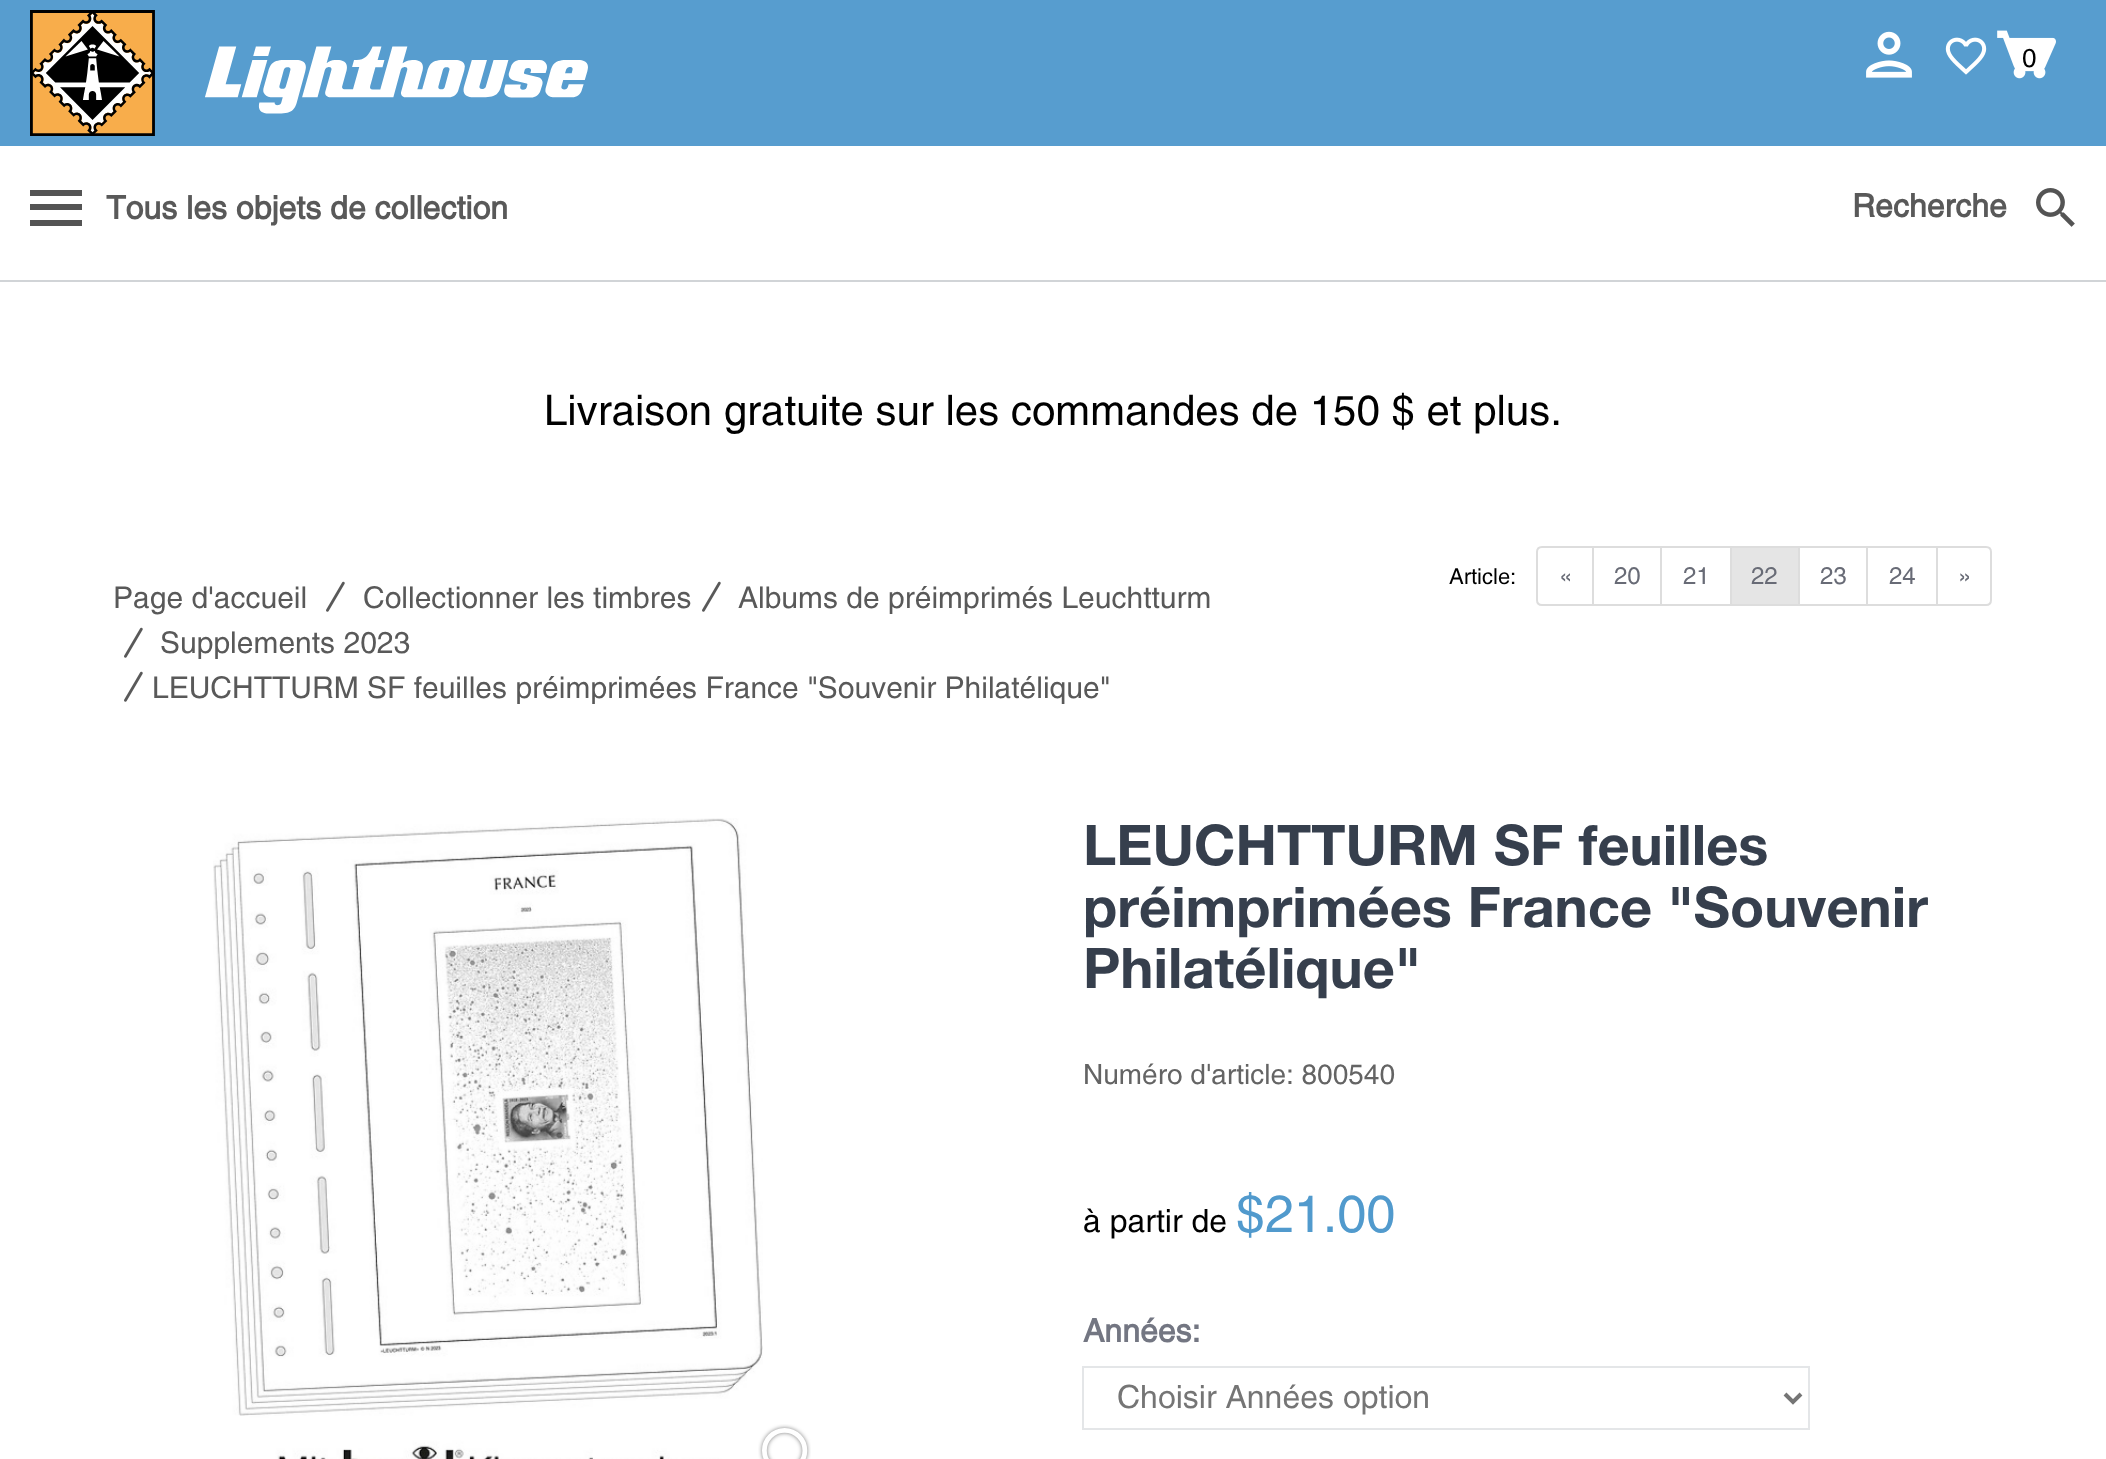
<svg xmlns="http://www.w3.org/2000/svg" width="2106" height="1459">
<style>
.a{font:26px Helvetica;fill:#000}
.b{font:bold 32px Helvetica;fill:#595959}
.c{font:42px Helvetica;fill:#000}
.d{font:22px Helvetica;fill:#000}
.e{font:24px Helvetica;fill:#686b76}
.f{font:30px Helvetica;fill:#595959}
.g{font:bold 56px Helvetica Neue;fill:#363f4d}
.h{font:28px Helvetica;fill:#646464}
.i{font:32px Helvetica;fill:#000}
.j{font:52px Helvetica;fill:#519acd}
.k{font:bold 32px Helvetica;fill:#737682}
.l{font:32px Helvetica;fill:#757575}
</style>
<rect width="100%" height="100%" fill="#fff"/>
<path fill="#579dcf" d="M0 0h2106v146H0z"/>
<image href="1.png" x="30" y="10" width="558" height="126"/>
<image href="2.png" x="1866" y="31" width="46" height="47"/>
<image href="3.png" x="1945" y="37" width="42" height="38"/>
<image href="4.png" x="1997" y="30" width="59" height="49"/>
<path fill="#545454" d="M30 190h52v6H30z"/>
<path fill="#545454" d="M30 204h52v6H30z"/>
<path fill="#545454" d="M30 220h52v6H30z"/>
<image href="5.png" x="2036" y="188" width="39" height="39"/>
<path fill="#d1d4d7" d="M0 280h2106v2H0z"/>
<path fill="none" stroke="#ddd" stroke-width="2" d="M1542 547h51v58h-51c-3 0-5-2-5-5v-48c0-3 2-5 5-5z"/>
<path fill="none" stroke="#ddd" stroke-width="2" d="M1593 547h68v58H1593z"/>
<path fill="none" stroke="#ddd" stroke-width="2" d="M1661 547h70v58H1661z"/>
<path fill="#e5e5e5" stroke="#ddd" stroke-width="2" d="M1731 547h68v58H1731z"/>
<path fill="none" stroke="#ddd" stroke-width="2" d="M1799 547h68v58H1799z"/>
<path fill="none" stroke="#ddd" stroke-width="2" d="M1867 547h70v58H1867z"/>
<path fill="#fff" stroke="#ddd" stroke-width="2" d="M1937 547h49c3 0 5 2 5 5v48c0 3-2 5-5 5h-49z"/>
<image href="6.png" x="326" y="581" width="19" height="31"/>
<image href="6.png" x="702" y="581" width="19" height="31"/>
<image href="6.png" x="124" y="627" width="19" height="31"/>
<image href="6.png" x="124" y="671" width="19" height="31"/>
<image href="7.png" x="213" y="818" width="550" height="641"/>
<image href="8.png" x="758" y="1424" width="53" height="35"/>
<path fill="none" stroke="#e4e6e8" stroke-width="2" d="M1083 1367h726v62H1083z"/>
<path fill="none" stroke="#757575" stroke-width="4" d="M1785 1394l8 8l8-8"/>
<text class="a" x="2022" y="67">0</text>
<text class="b" x="106" y="219">Tous les objets de collection</text>
<text class="b" x="1852" y="217">Recherche</text>
<text class="c" x="544" y="425">Livraison gratuite sur les commandes de 150 $ et plus.</text>
<text class="d" x="1449" y="584">Article:</text>
<text class="e" x="1559" y="584">«</text>
<text class="e" x="1614" y="584">20</text>
<text class="e" x="1683" y="584">21</text>
<text class="e" x="1751" y="584">22</text>
<text class="e" x="1820" y="584">23</text>
<text class="e" x="1889" y="584">24</text>
<text class="e" x="1958" y="584">»</text>
<text class="f" x="113" y="608">Page d'accueil</text>
<text class="f" x="363" y="608">Collectionner les timbres</text>
<text class="f" x="738" y="608">Albums de préimprimés Leuchtturm</text>
<text class="f" x="160" y="653">Supplements 2023</text>
<text class="f" x="152" y="698">LEUCHTTURM SF feuilles préimprimées France "Souvenir Philatélique"</text>
<text class="g" x="1083" y="865">LEUCHTTURM SF feuilles</text>
<text class="g" x="1083" y="927">préimprimées France "Souvenir</text>
<text class="g" x="1083" y="988">Philatélique"</text>
<text class="h" x="1083" y="1084">Numéro d'article: 800540</text>
<text class="i" x="1083" y="1232">à partir de</text>
<text class="j" x="1236" y="1232">$21.00</text>
<text class="k" x="1083" y="1342">Années:</text>
<text class="l" x="1117" y="1408">Choisir Années option</text>
</svg>
